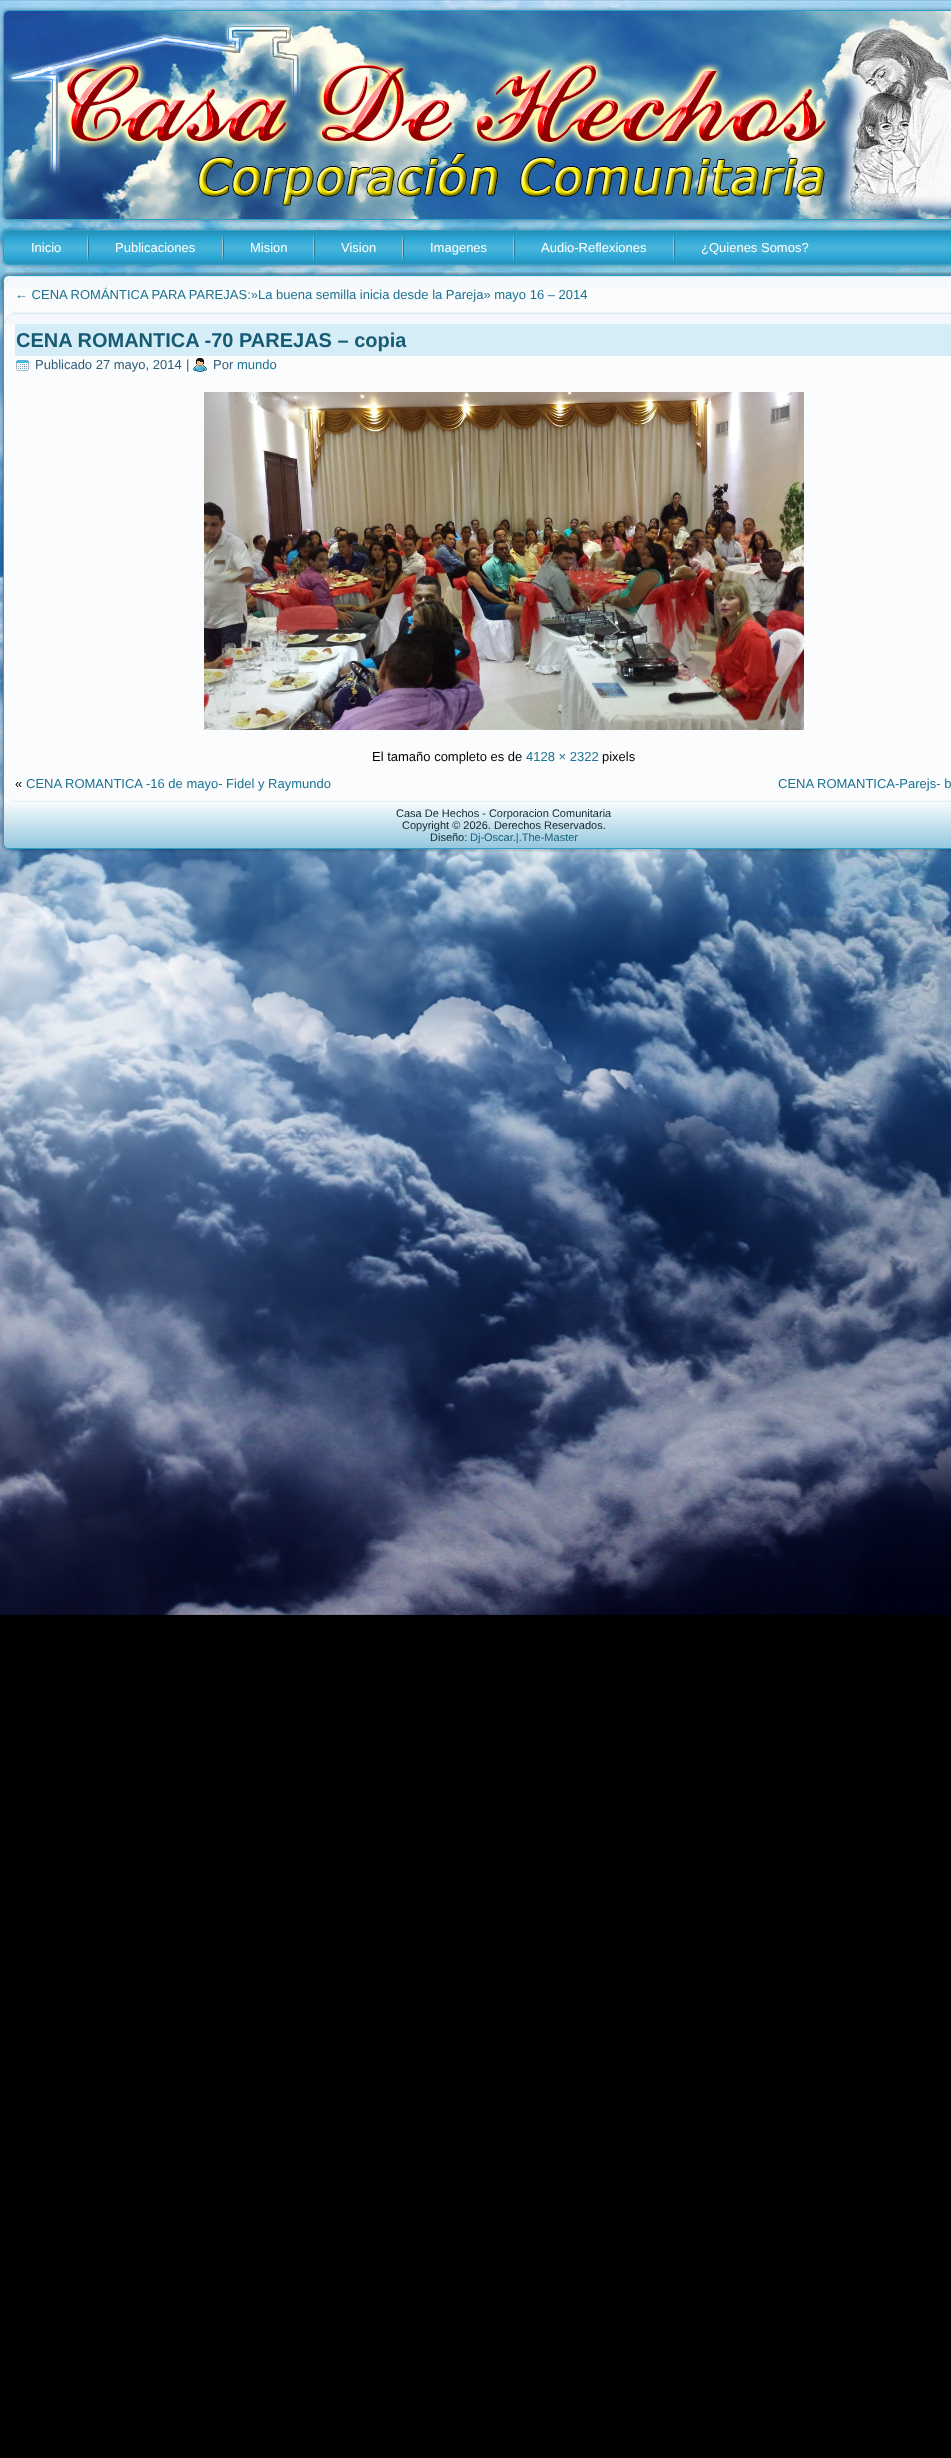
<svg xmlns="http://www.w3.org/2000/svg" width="951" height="2458">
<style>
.a{font:13px Liberation Sans;fill:#fff}
.b{font:13px Liberation Sans;fill:#1d7291}
.c{font:bold 20px Liberation Sans;fill:#175a73}
.d{font:13px Liberation Sans;fill:#2f5d74}
.e{font:13px Liberation Sans;fill:#000}
.f{font:11px Liberation Sans;fill:#13262f}
.g{font:11px Liberation Sans;fill:#18617b}
</style>
<rect width="100%" height="100%" fill="#000"/>
<image href="1.png" x="0" y="0" width="951" height="1615"/>
<image href="2.png" x="56" y="8" width="17" height="2"/>
<image href="3.png" x="0" y="7" width="951" height="216"/>
<image href="4.png" x="12" y="11" width="939" height="208"/>
<image href="5.png" x="0" y="227" width="951" height="41"/>
<image href="6.png" x="87" y="235" width="2" height="26"/>
<image href="6.png" x="222" y="235" width="2" height="26"/>
<image href="6.png" x="313" y="235" width="2" height="26"/>
<image href="6.png" x="402" y="235" width="2" height="26"/>
<image href="6.png" x="513" y="235" width="2" height="26"/>
<image href="6.png" x="673" y="235" width="2" height="26"/>
<image href="7.png" x="0" y="272" width="951" height="580"/>
<image href="8.png" x="0" y="272" width="951" height="18"/>
<image href="16.png" x="0" y="290" width="951" height="544"/>
<image href="9.png" x="4" y="276" width="947" height="37"/>
<image href="10.png" x="4" y="276" width="947" height="11"/>
<path fill="#f9fbfd" d="M4 287h947v15H4z"/>
<image href="17.png" x="4" y="800" width="947" height="48"/>
<image href="11.png" x="4" y="313" width="947" height="489"/>
<image href="12.png" x="4" y="313" width="947" height="11"/>
<path fill="#fafcfe" d="M4 324h947v467H4z"/>
<path fill="#d5edf7" d="M15 324h936v32H15z"/>
<image href="13.png" x="16" y="360" width="13" height="11"/>
<image href="14.png" x="193" y="358" width="14" height="14"/>
<image href="15.png" x="204" y="392" width="600" height="338"/>
<text class="a" x="31" y="252">Inicio</text>
<text class="a" x="115" y="252">Publicaciones</text>
<text class="a" x="250" y="252">Mision</text>
<text class="a" x="341" y="252">Vision</text>
<text class="a" x="430" y="252">Imagenes</text>
<text class="a" x="541" y="252">Audio-Reflexiones</text>
<text class="a" x="701" y="252">¿Quienes Somos?</text>
<text class="b" x="15" y="299">← CENA ROMÁNTICA PARA PAREJAS:»La buena semilla inicia desde la Pareja» mayo 16 – 2014</text>
<text class="c" x="16" y="347">CENA ROMANTICA -70 PAREJAS – copia</text>
<text class="d" x="35" y="369">Publicado 27 mayo, 2014</text>
<text class="d" x="186" y="369">|</text>
<text class="d" x="213" y="369">Por</text>
<text class="b" x="237" y="369">mundo</text>
<text class="e" x="372" y="761">El tamaño completo es de</text>
<text class="b" x="526" y="761">4128 × 2322</text>
<text class="e" x="602" y="761">pixels</text>
<text class="e" x="15" y="788">«</text>
<text class="b" x="26" y="788">CENA ROMANTICA -16 de mayo- Fidel y Raymundo</text>
<text class="b" x="778" y="788">CENA ROMANTICA-Parejs- b</text>
<text class="f" x="396" y="817">Casa De Hechos - Corporacion Comunitaria</text>
<text class="f" x="402" y="829">Copyright © 2026. Derechos Reservados.</text>
<text class="f" x="430" y="841">Diseño:</text>
<text class="g" x="470" y="841">Dj-Oscar.|.The-Master</text>
</svg>
